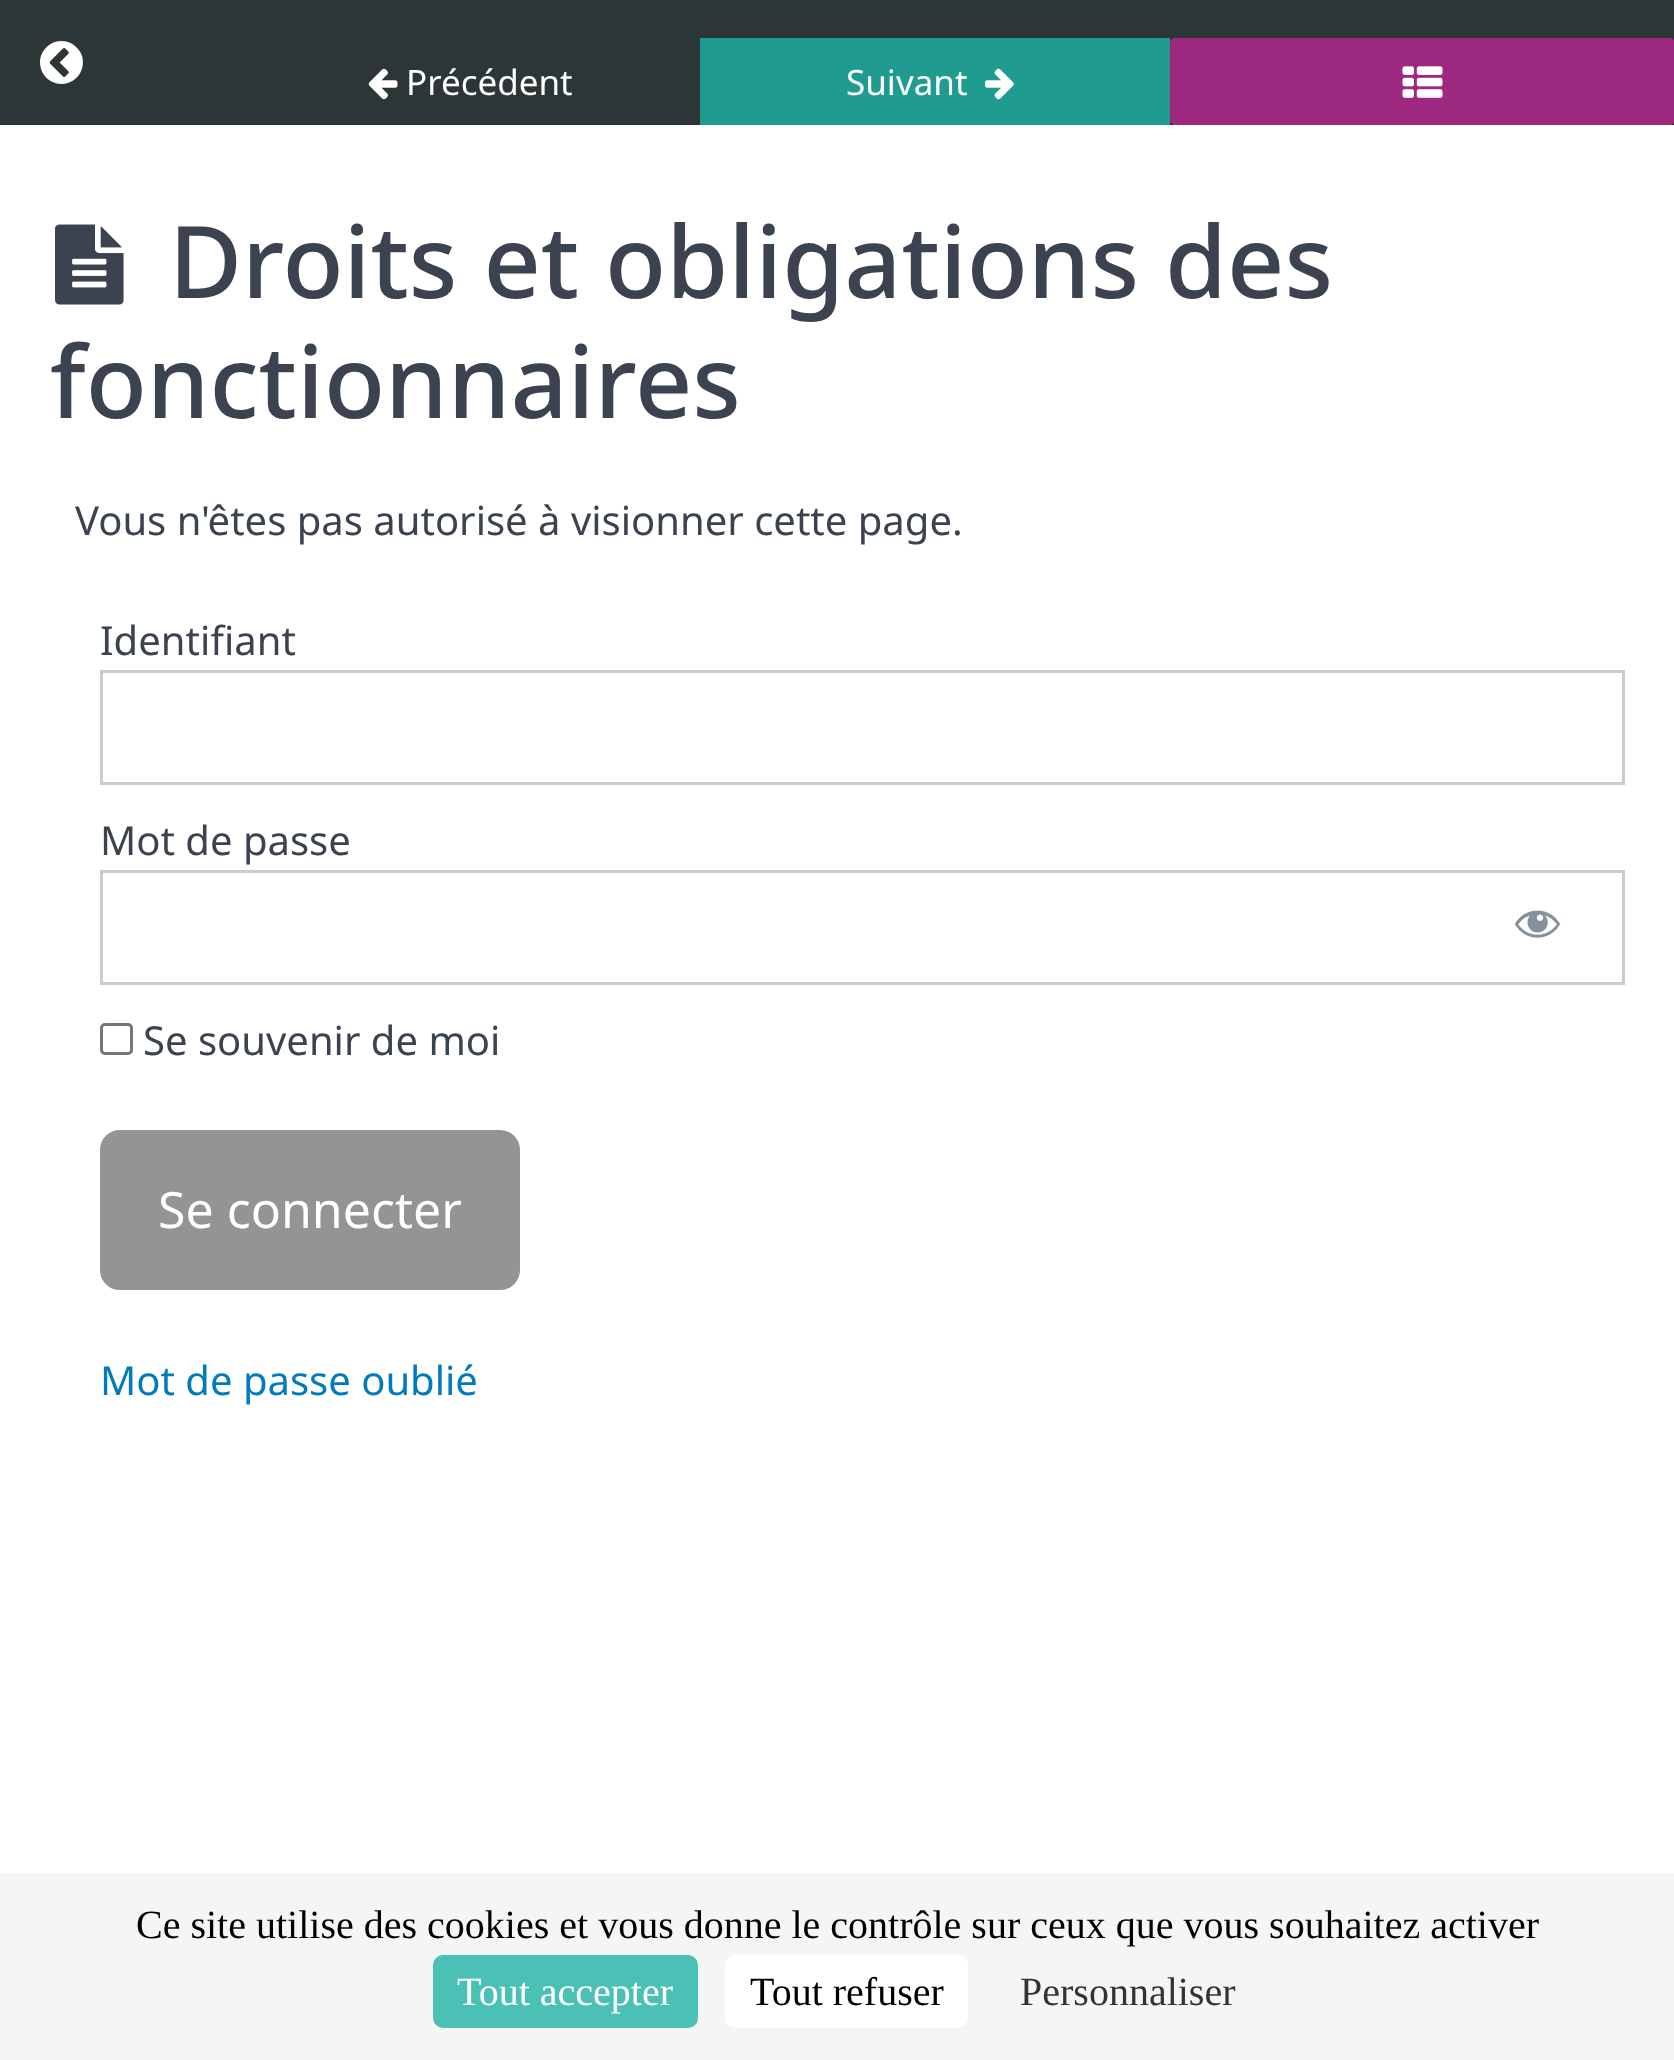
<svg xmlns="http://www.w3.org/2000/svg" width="1674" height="2060">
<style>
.a{font:35px Noto Sans;fill:#fff}
.b{font:500 100px Noto Sans;fill:#3b4351}
.c{font:40px Noto Sans;fill:#3b4351}
.d{font:50px Noto Sans;fill:#fff}
.e{font:40px Noto Sans;fill:#007cba}
.f{font:40px Liberation Serif;fill:#000}
.g{font:40px Liberation Serif;fill:#fff}
.h{font:40px Liberation Serif;fill:#333}
</style>
<rect width="100%" height="100%" fill="#fff"/>
<path fill="#2c3637" d="M0 0h1674v125H0z"/>
<image href="1.png" x="40" y="41" width="43" height="43"/>
<image href="2.png" x="368" y="68" width="30" height="32"/>
<path fill="#1f9b90" d="M700 38h470v87H700z"/>
<image href="3.png" x="985" y="68" width="29" height="32"/>
<rect fill="#9d2880" x="1170" y="38" width="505" height="87" rx="5"/>
<image href="4.png" x="1402" y="66" width="41" height="32"/>
<image href="5.png" x="55" y="224" width="69" height="81"/>
<path fill="none" stroke="#ccc" stroke-width="3" d="M101.5 671.5h1522v112H101.5z"/>
<path fill="none" stroke="#ccc" stroke-width="3" d="M101.5 871.5h1522v112H101.5z"/>
<image href="6.png" x="1514" y="910" width="47" height="28"/>
<rect fill="none" stroke="#767676" stroke-width="3" x="101.5" y="1024.5" width="30" height="29" rx="3.5"/>
<rect fill="#949494" stroke="#949494" stroke-width="3" x="101.5" y="1131.5" width="417" height="157" rx="18.5"/>
<path fill="#f5f5f5" d="M0 1873h1674v187H0z"/>
<rect fill="#4bc1b5" x="433" y="1955" width="265" height="73" rx="10"/>
<rect fill="#fff" x="725" y="1955" width="243" height="73" rx="10"/>
<text class="a" x="406" y="95">Précédent</text>
<text class="a" x="846" y="95">Suivant</text>
<text class="b" x="169" y="298">Droits et obligations des</text>
<text class="b" x="50" y="418">fonctionnaires</text>
<text class="c" x="75" y="535">Vous n'êtes pas autorisé à visionner cette page.</text>
<text class="c" x="100" y="655">Identifiant</text>
<text class="c" x="100" y="855">Mot de passe</text>
<text class="c" x="143" y="1055">Se souvenir de moi</text>
<text class="d" x="158" y="1228">Se connecter</text>
<text class="e" x="100" y="1395">Mot de passe oublié</text>
<text class="f" x="136" y="1938">Ce site utilise des cookies et vous donne le contrôle sur ceux que vous souhaitez activer</text>
<text class="g" x="457" y="2005">Tout accepter</text>
<text class="f" x="750" y="2005">Tout refuser</text>
<text class="h" x="1020" y="2005">Personnaliser</text>
</svg>
